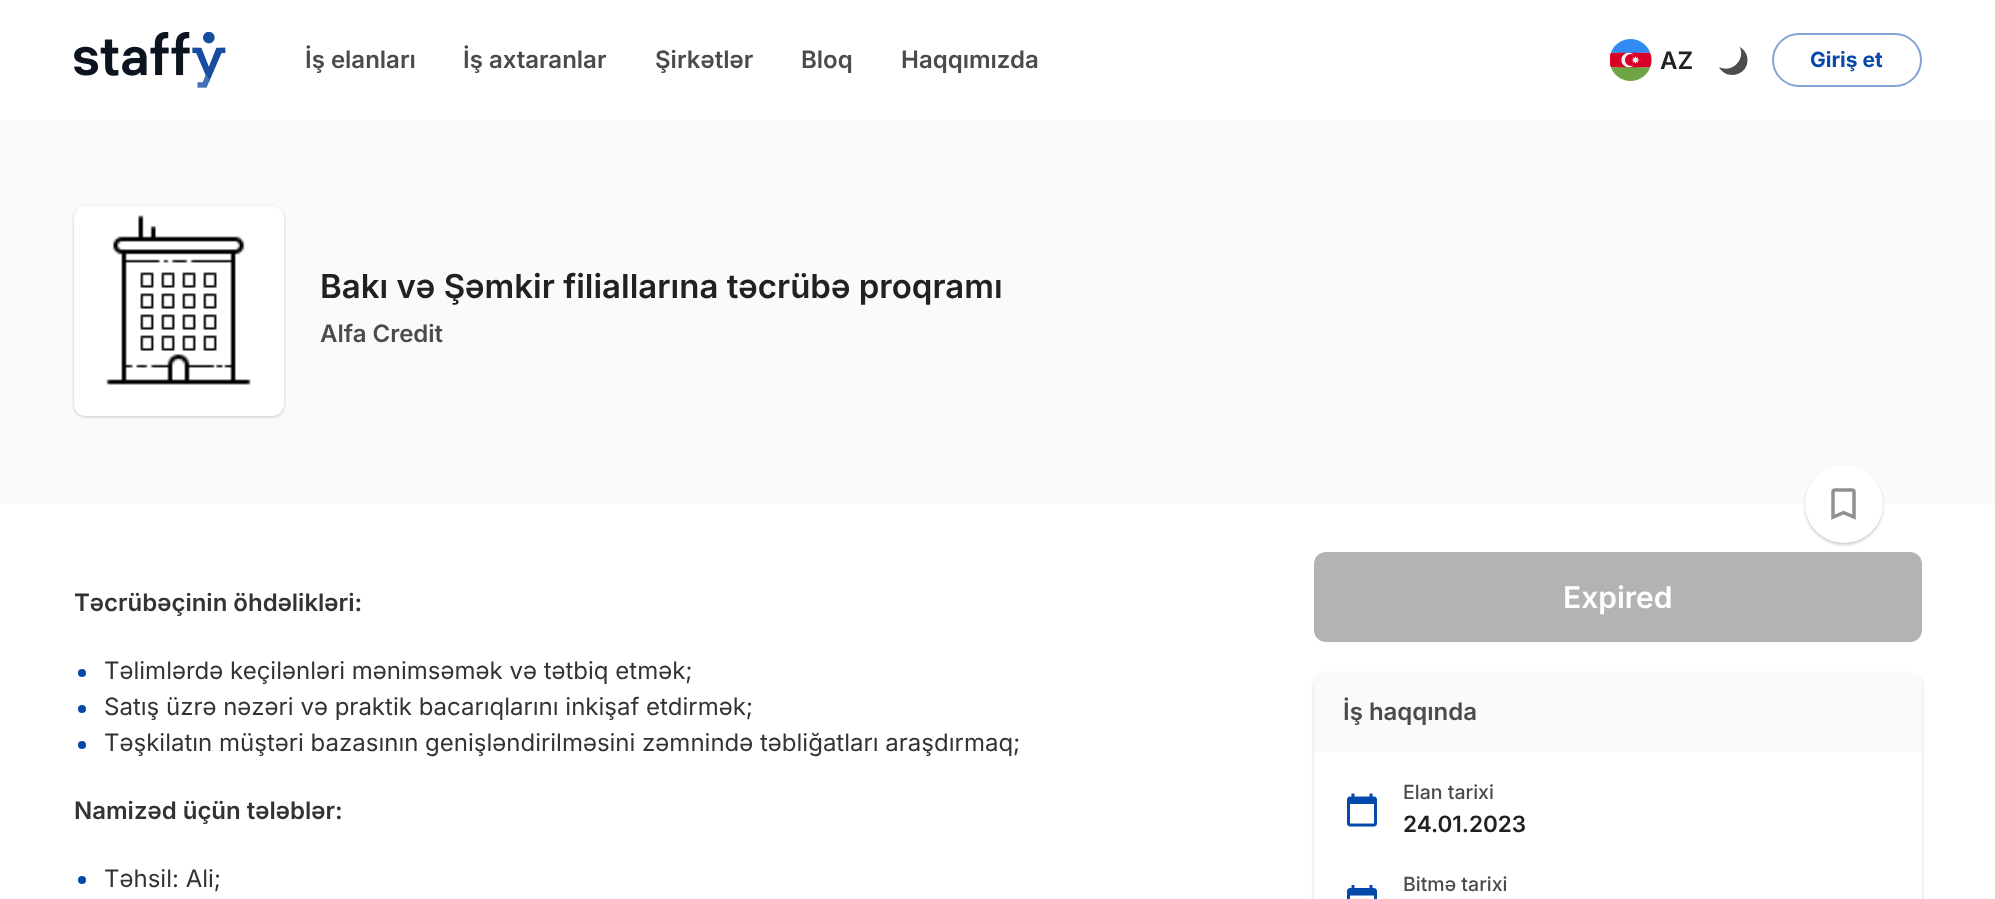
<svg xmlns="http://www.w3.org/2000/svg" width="1995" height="899">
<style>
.a{font:600 24px Inter;fill:#4b4b4b}
.b{font:600 24px Inter;fill:#212121}
.c{font:bold 21px Inter;fill:#0549aa}
.d{font:600 33px Inter;fill:#212121}
.e{font:600 24px Inter;fill:#333}
.f{font:24px Inter;fill:#333}
.g{font:600 30px Inter;fill:#fff}
.h{font:500 19.5px Inter;fill:#4b4b4b}
.i{font:600 22.5px Inter;fill:#212121}
</style>
<rect width="100%" height="100%" fill="#fff"/>
<image href="1.png" x="74" y="32" width="152" height="56"/>
<image href="2.png" x="1610" y="39" width="42" height="42"/>
<path fill="#4d4d4d" d="M1743 49.5l-3.5-3c6.5 13-7.5 27-20.5 20.5c7 13.5 28.5 9 28.5-7c0-4-1.5-8-4.5-10.5z"/>
<rect fill="none" stroke="#82a4d5" stroke-width="2" x="1773" y="34" width="148" height="52" rx="26"/>
<path fill="#fafafa" d="M0 120h1995v384H0z"/>
<rect fill="#00000033" filter="blur(1.5px)" x="74" y="207" width="210" height="210" rx="12"/>
<rect fill="#fff" x="74" y="206" width="210" height="210" rx="12"/>
<image href="3.png" x="106" y="215" width="145" height="170"/>
<rect fill="#00000033" filter="blur(1.5px)" x="1805" y="467" width="78" height="78" rx="39"/>
<circle fill="#fff" cx="1844" cy="504" r="39"/>
<image href="4.png" x="1831" y="488" width="25" height="32"/>
<circle fill="#0549aa" cx="82" cy="673" r="4"/>
<circle fill="#0549aa" cx="82" cy="709" r="4"/>
<circle fill="#0549aa" cx="82" cy="745" r="4"/>
<circle fill="#0549aa" cx="82" cy="880" r="4"/>
<rect fill="#b3b3b3" x="1314" y="552" width="608" height="90" rx="12"/>
<rect fill="#00000033" filter="blur(1.5px)" x="1314" y="674" width="608" height="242" rx="12"/>
<rect fill="#fff" x="1314" y="672" width="608" height="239" rx="12"/>
<path fill="#fafafa" d="M1326 672h584c6.5 0 12 5.5 12 12v68h-608v-68c0-6.5 5.5-12 12-12z"/>
<image href="5.png" x="1347" y="793" width="30" height="34"/>
<image href="6.png" x="1347" y="885" width="30" height="14"/>
<text class="a" x="305" y="68">İş elanları</text>
<text class="a" x="463" y="68">İş axtaranlar</text>
<text class="a" x="655" y="68">Şirkətlər</text>
<text class="a" x="801" y="68">Bloq</text>
<text class="a" x="901" y="68">Haqqımızda</text>
<text class="b" x="1660" y="69">AZ</text>
<text class="c" x="1810" y="67">Giriş et</text>
<text class="d" x="320" y="298">Bakı və Şəmkir filiallarına təcrübə proqramı</text>
<text class="a" x="320" y="342">Alfa Credit</text>
<text class="e" x="74" y="611">Təcrübəçinin öhdəlikləri:</text>
<text class="f" x="104" y="679">Təlimlərdə keçilənləri mənimsəmək və tətbiq etmək;</text>
<text class="f" x="104" y="715">Satış üzrə nəzəri və praktik bacarıqlarını inkişaf etdirmək;</text>
<text class="f" x="104" y="751">Təşkilatın müştəri bazasının genişləndirilməsini zəmnində təbliğatları araşdırmaq;</text>
<text class="e" x="74" y="819">Namizəd üçün tələblər:</text>
<text class="f" x="104" y="887">Təhsil: Ali;</text>
<text class="g" x="1563" y="608">Expired</text>
<text class="a" x="1343" y="720">İş haqqında</text>
<text class="h" x="1403" y="799">Elan tarixi</text>
<text class="i" x="1403" y="832">24.01.2023</text>
<text class="h" x="1403" y="891">Bitmə tarixi</text>
</svg>
